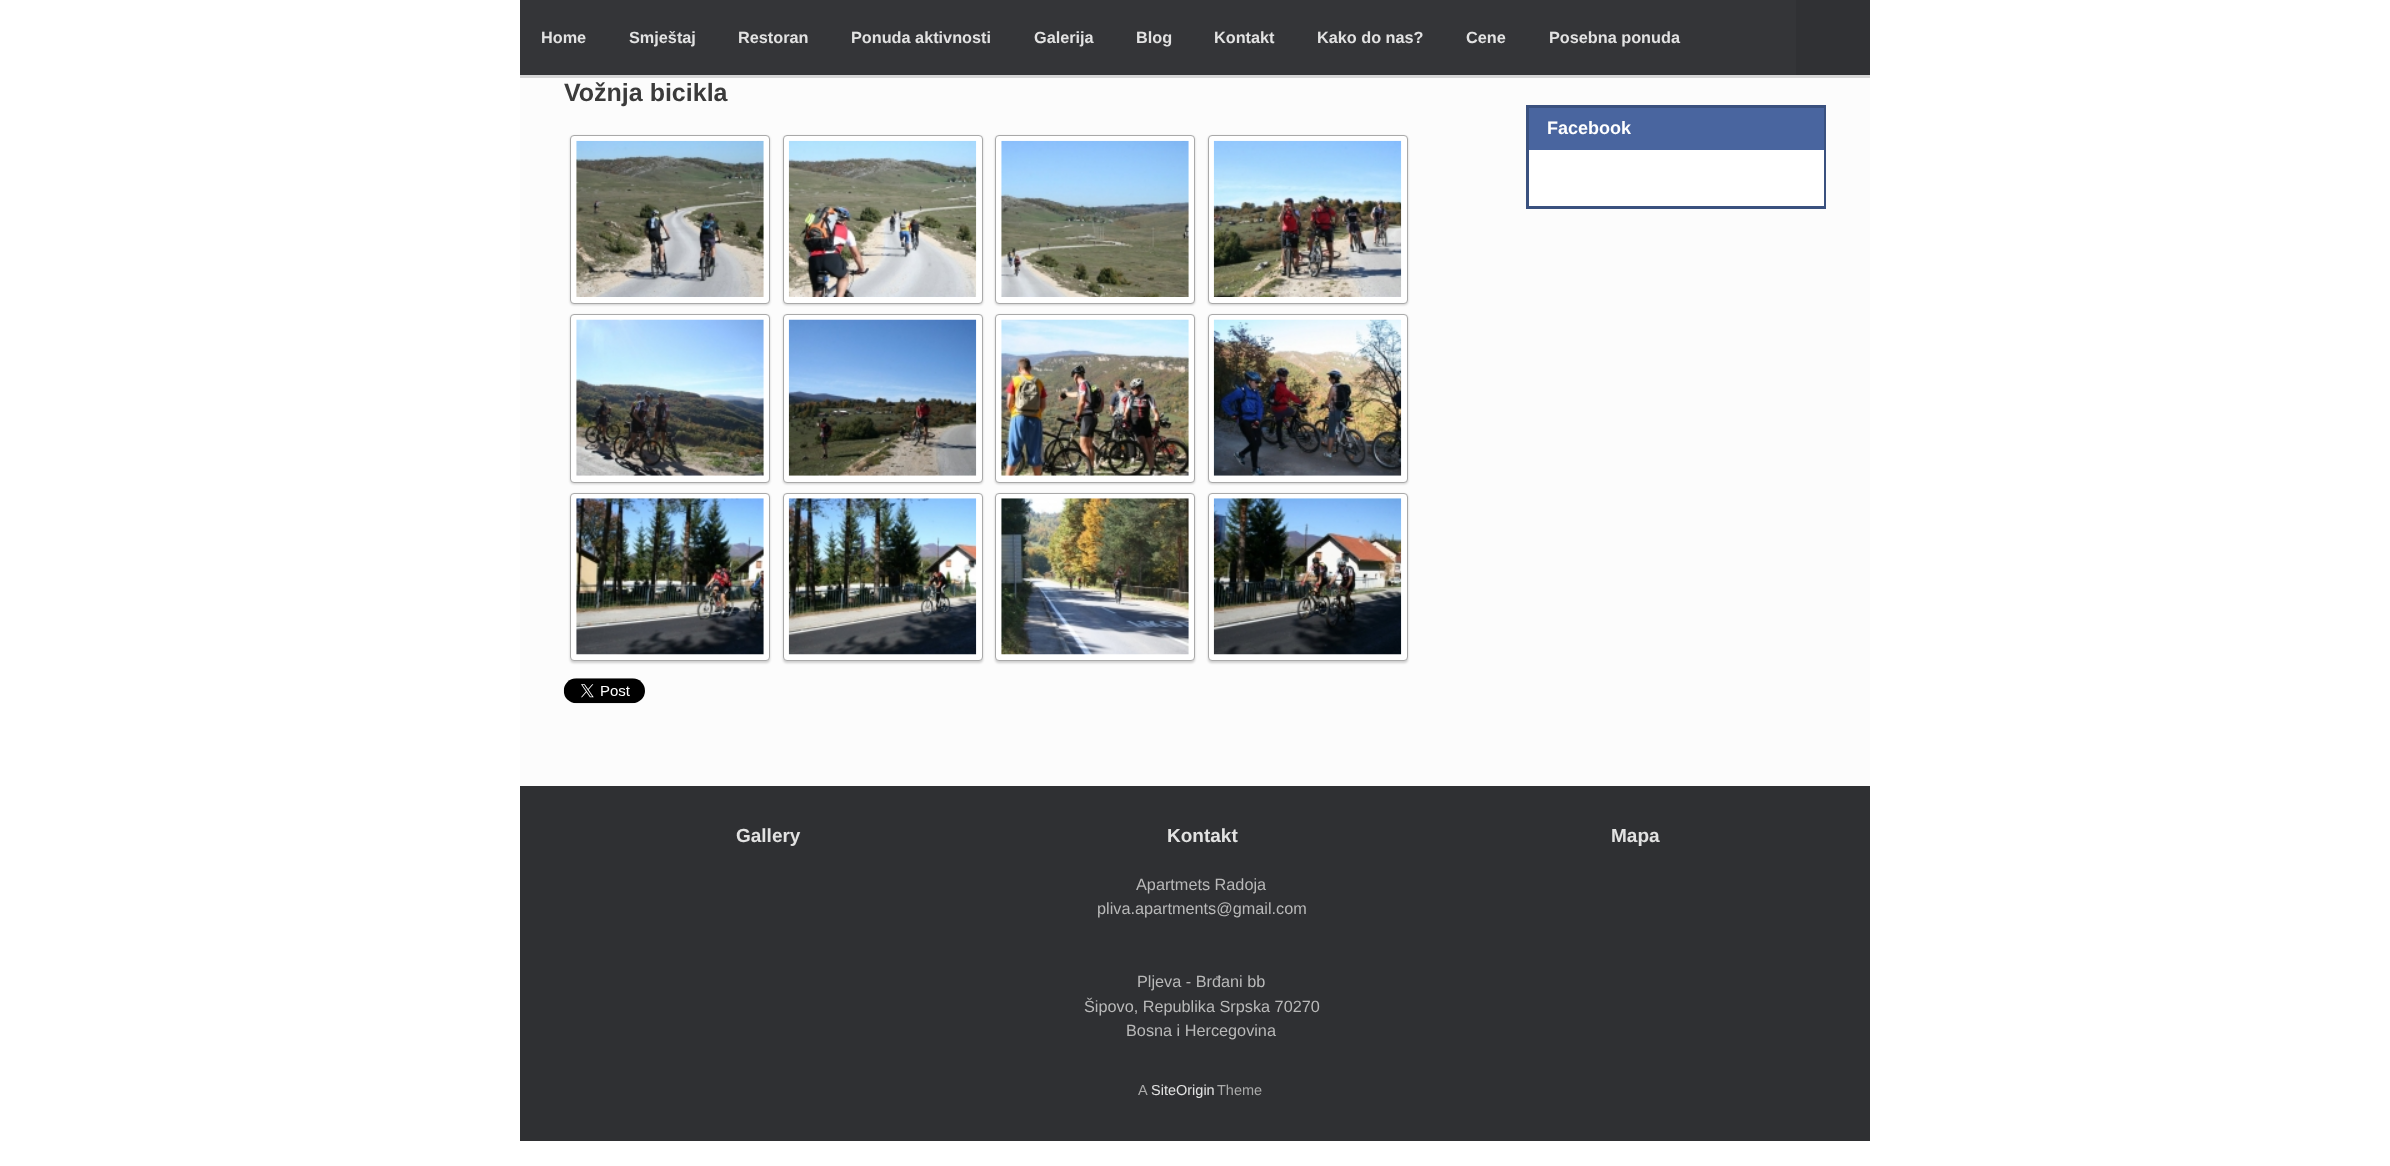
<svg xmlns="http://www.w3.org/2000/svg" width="2390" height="1166">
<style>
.a{font:bold 16.25px Liberation Sans;fill:#e2e2e2}
.b{font:bold 25px Liberation Sans;fill:#3b3b3b}
.c{font:bold 18px Liberation Sans;fill:#fff}
.d{font:bold 19px Liberation Sans;fill:#e2e2e2}
.e{font:16.25px Liberation Sans;fill:#b9b9b9}
.f{font:14.5px Liberation Sans;fill:#aaa}
.g{font:14.5px Liberation Sans;fill:#e2e2e2}
</style>
<rect width="100%" height="100%" fill="#fff"/>
<path fill="#fcfcfc" d="M520 75h1350v711H520z"/>
<path fill="#00000026" filter="blur(0.5px)" d="M520 3h1350v75H520z"/>
<path fill="#343538" d="M520 0h1276v75H520z"/>
<path fill="#303134" d="M1796 0h74v75H1796z"/>
<rect fill="#0000002e" filter="blur(1px)" x="570" y="136" width="200" height="169" rx="4"/>
<rect fill="#fff" stroke="#a9a9a9" x="570.5" y="135.5" width="199" height="168" rx="3.5"/>
<image href="1.png" x="576" y="140" width="188" height="157"/>
<rect fill="#0000002e" filter="blur(1px)" x="783" y="136" width="200" height="169" rx="4"/>
<rect fill="#fff" stroke="#a9a9a9" x="783.5" y="135.5" width="199" height="168" rx="3.5"/>
<image href="2.png" x="788" y="140" width="189" height="157"/>
<rect fill="#0000002e" filter="blur(1px)" x="995" y="136" width="200" height="169" rx="4"/>
<rect fill="#fff" stroke="#a9a9a9" x="995.5" y="135.5" width="199" height="168" rx="3.5"/>
<image href="3.png" x="1001" y="140" width="188" height="157"/>
<rect fill="#0000002e" filter="blur(1px)" x="1208" y="136" width="200" height="169" rx="4"/>
<rect fill="#fff" stroke="#a9a9a9" x="1208.5" y="135.5" width="199" height="168" rx="3.5"/>
<image href="4.png" x="1213" y="140" width="189" height="157"/>
<rect fill="#0000002e" filter="blur(1px)" x="570" y="315" width="200" height="169" rx="4"/>
<rect fill="#fff" stroke="#a9a9a9" x="570.5" y="314.5" width="199" height="168" rx="3.5"/>
<image href="5.png" x="576" y="319" width="188" height="157"/>
<rect fill="#0000002e" filter="blur(1px)" x="783" y="315" width="200" height="169" rx="4"/>
<rect fill="#fff" stroke="#a9a9a9" x="783.5" y="314.5" width="199" height="168" rx="3.5"/>
<image href="6.png" x="788" y="319" width="189" height="157"/>
<rect fill="#0000002e" filter="blur(1px)" x="995" y="315" width="200" height="169" rx="4"/>
<rect fill="#fff" stroke="#a9a9a9" x="995.5" y="314.5" width="199" height="168" rx="3.5"/>
<image href="7.png" x="1001" y="319" width="188" height="157"/>
<rect fill="#0000002e" filter="blur(1px)" x="1208" y="315" width="200" height="169" rx="4"/>
<rect fill="#fff" stroke="#a9a9a9" x="1208.5" y="314.5" width="199" height="168" rx="3.5"/>
<image href="8.png" x="1213" y="319" width="189" height="157"/>
<rect fill="#0000002e" filter="blur(1px)" x="570" y="494" width="200" height="169" rx="4"/>
<rect fill="#fff" stroke="#a9a9a9" x="570.5" y="493.5" width="199" height="167" rx="3.5"/>
<image href="9.png" x="576" y="498" width="188" height="157"/>
<rect fill="#0000002e" filter="blur(1px)" x="783" y="494" width="200" height="169" rx="4"/>
<rect fill="#fff" stroke="#a9a9a9" x="783.5" y="493.5" width="199" height="167" rx="3.5"/>
<image href="10.png" x="788" y="498" width="189" height="157"/>
<rect fill="#0000002e" filter="blur(1px)" x="995" y="494" width="200" height="169" rx="4"/>
<rect fill="#fff" stroke="#a9a9a9" x="995.5" y="493.5" width="199" height="167" rx="3.5"/>
<image href="11.png" x="1001" y="498" width="188" height="157"/>
<rect fill="#0000002e" filter="blur(1px)" x="1208" y="494" width="200" height="169" rx="4"/>
<rect fill="#fff" stroke="#a9a9a9" x="1208.5" y="493.5" width="199" height="167" rx="3.5"/>
<image href="12.png" x="1213" y="498" width="189" height="157"/>
<image href="13.png" x="563" y="678" width="82" height="26"/>
<path fill="none" stroke="#3a517f" stroke-width="3" d="M1527.5 106.5h297v101H1527.5z"/>
<path fill="#49659f" d="M1529 108h295v42H1529z"/>
<path fill="#fff" d="M1529 150h295v56H1529z"/>
<path fill="#2f3033" d="M520 786h1350v355H520z"/>
<text class="a" x="541" y="43">Home</text>
<text class="a" x="629" y="43">Smještaj</text>
<text class="a" x="738" y="43">Restoran</text>
<text class="a" x="851" y="43">Ponuda aktivnosti</text>
<text class="a" x="1034" y="43">Galerija</text>
<text class="a" x="1136" y="43">Blog</text>
<text class="a" x="1214" y="43">Kontakt</text>
<text class="a" x="1317" y="43">Kako do nas?</text>
<text class="a" x="1466" y="43">Cene</text>
<text class="a" x="1549" y="43">Posebna ponuda</text>
<text class="b" x="564" y="101">Vožnja bicikla</text>
<text class="c" x="1547" y="134">Facebook</text>
<text class="d" x="736" y="842">Gallery</text>
<text class="d" x="1167" y="842">Kontakt</text>
<text class="e" x="1136" y="890">Apartmets Radoja</text>
<text class="e" x="1097" y="914">pliva.apartments@gmail.com</text>
<text class="e" x="1137" y="987">Pljeva - Brđani bb</text>
<text class="e" x="1084" y="1012">Šipovo, Republika Srpska 70270</text>
<text class="e" x="1126" y="1036">Bosna i Hercegovina</text>
<text class="d" x="1611" y="842">Mapa</text>
<text class="f" x="1138" y="1095">A</text>
<text class="g" x="1151" y="1095">SiteOrigin</text>
<text class="f" x="1217" y="1095">Theme</text>
</svg>
